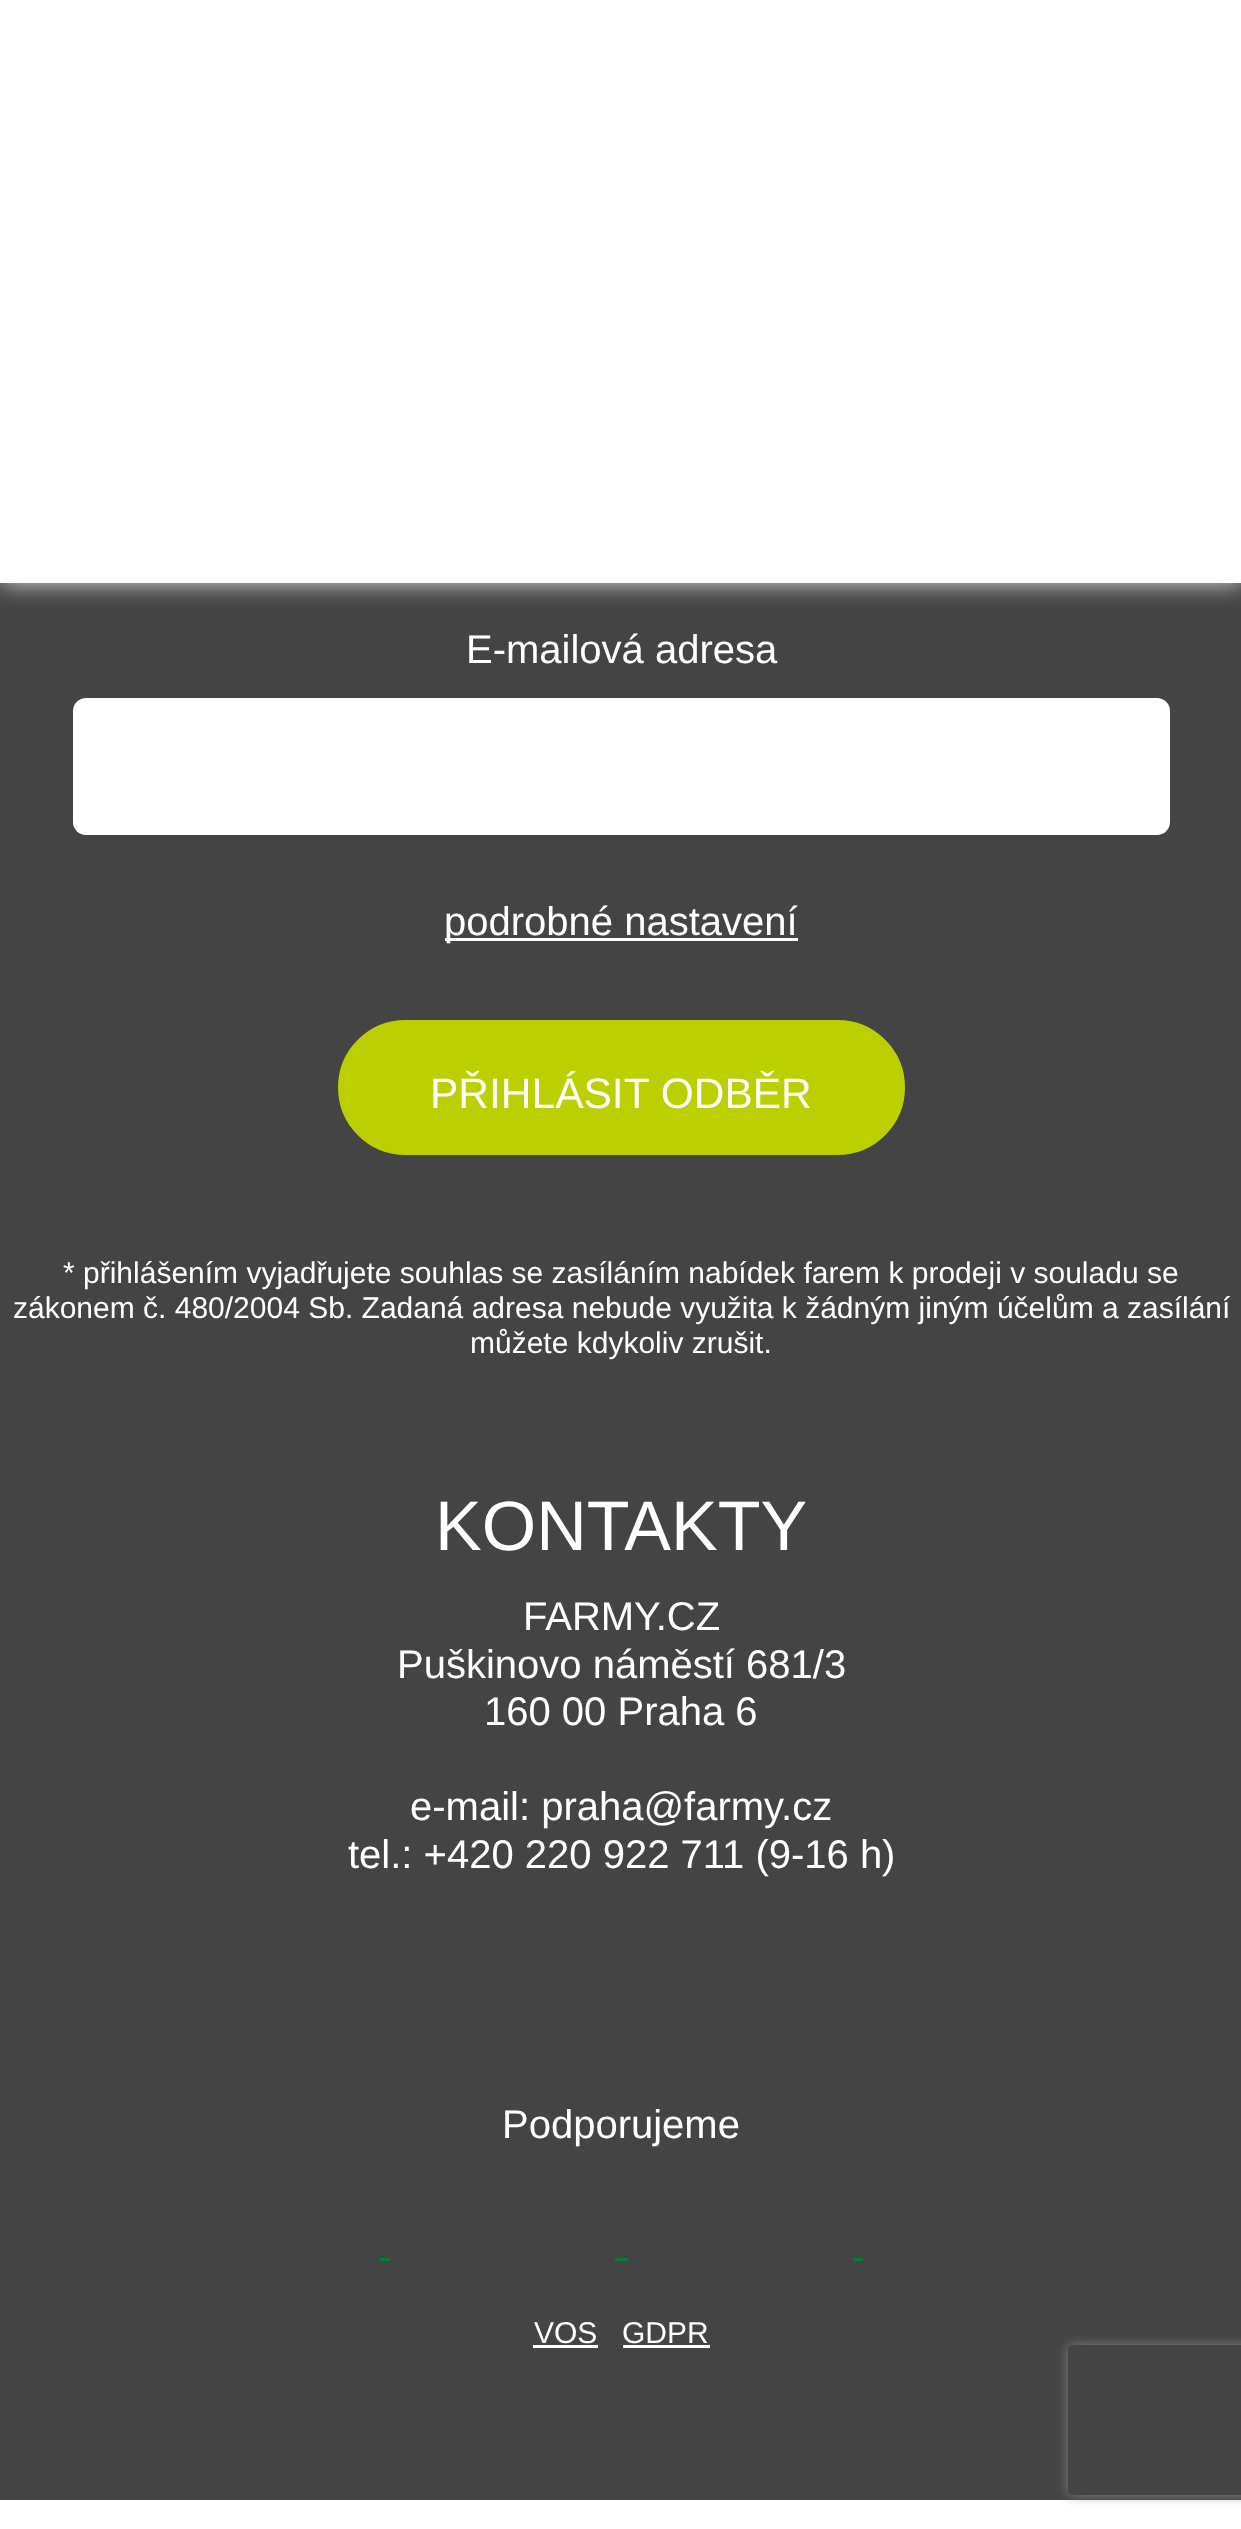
<svg xmlns="http://www.w3.org/2000/svg" width="1241" height="2529">
<style>
.a{font:40px Liberation Sans;fill:#fff}
.b{font:42.5px Liberation Sans;fill:#fff}
.c{font:30px Liberation Sans;fill:#fff}
.d{font:70px Liberation Sans;fill:#fff}
</style>
<defs>
<clipPath id="clip1"><path d="M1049 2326h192v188h-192zm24 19h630c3 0 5 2 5 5v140c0 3-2 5-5 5h-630c-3 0-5-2-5-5v-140c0-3 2-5 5-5z" clip-rule="evenodd"/></clipPath>
</defs>
<rect width="100%" height="100%" fill="#fff"/>
<path fill="#444" d="M0 583h1241v1917H0z"/>
<path fill="#ddd" filter="blur(12.5px)" d="M0 0h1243v583H0z"/>
<path fill="#fff" d="M0 0h1241v583H0z"/>
<rect fill="#fff" x="73" y="698" width="1097" height="137" rx="13"/>
<path fill="#fff" d="M445 938h353v3H445z"/>
<rect fill="#bccf00" stroke="#bccf00" stroke-width="5" x="340.5" y="1022.5" width="562" height="130" rx="65"/>
<path fill="#037e38" d="M380 2258h10v3H380z"/>
<path fill="#037e38" d="M615 2258h13v3H615z"/>
<path fill="#037e38" d="M853 2258h10v3H853z"/>
<path fill="#fff" d="M533 2345h65v3H533z"/>
<path fill="#fff" d="M623 2345h87v3H623z"/>
<g clip-path="url(#clip1)">
<rect fill="#808080" filter="blur(6px)" x="1068" y="2345" width="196" height="150" rx="5"/>
</g>
<text class="a" x="466" y="663">E-mailová adresa</text>
<text class="a" x="444" y="935">podrobné nastavení</text>
<text class="b" x="430" y="1108">PŘIHLÁSIT ODBĚR</text>
<text class="c" x="63" y="1283">* přihlášením vyjadřujete souhlas se zasíláním nabídek farem k prodeji v souladu se</text>
<text class="c" x="13" y="1318">zákonem č. 480/2004 Sb. Zadaná adresa nebude využita k žádným jiným účelům a zasílání</text>
<text class="c" x="470" y="1353">můžete kdykoliv zrušit.</text>
<text class="d" x="435" y="1550">KONTAKTY</text>
<text class="a" x="523" y="1630">FARMY.CZ</text>
<text class="a" x="397" y="1678">Puškinovo náměstí 681/3</text>
<text class="a" x="484" y="1725">160 00 Praha 6</text>
<text class="a" x="410" y="1820">e-mail: praha@farmy.cz</text>
<text class="a" x="348" y="1868">tel.: +420 220 922 711 (9-16 h)</text>
<text class="a" x="502" y="2138">Podporujeme</text>
<text class="c" x="534" y="2343">VOS</text>
<text class="c" x="622" y="2343">GDPR</text>
</svg>
